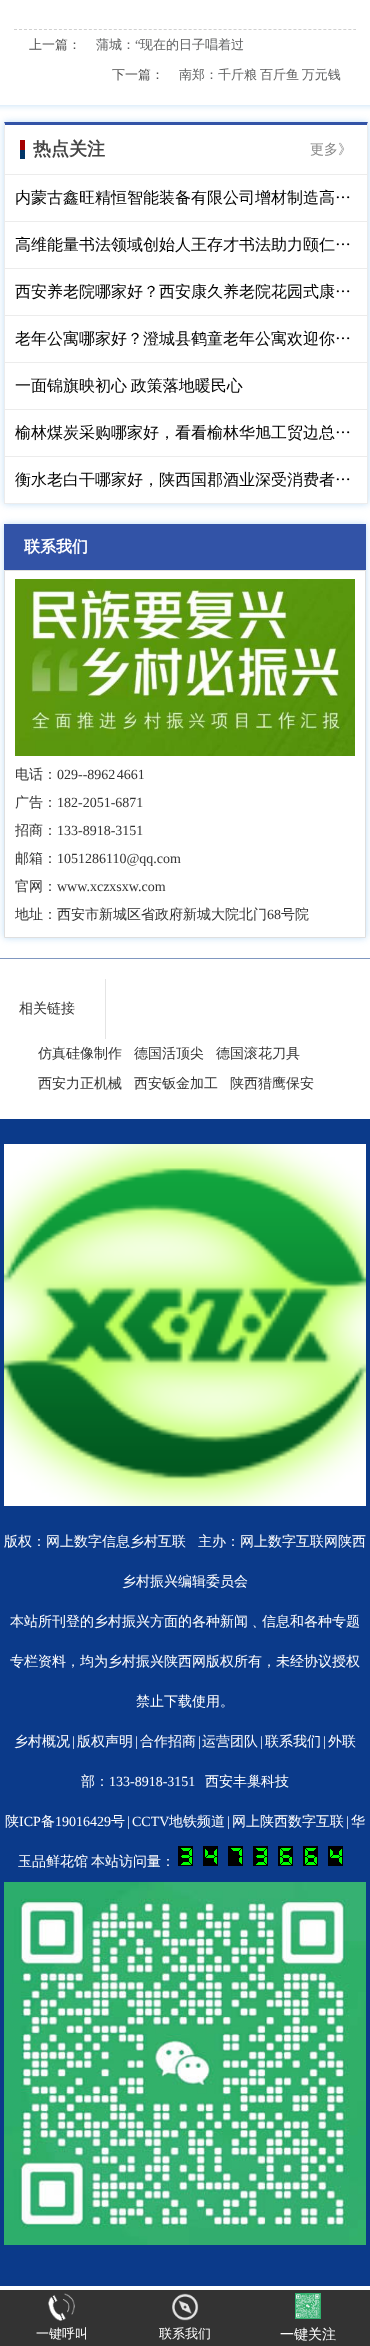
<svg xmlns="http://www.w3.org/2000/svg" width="370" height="2346">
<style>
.a{font:500 13px WenQuanYi Zen Hei;fill:#515151}
.b{font:500 13px WenQuanYi Zen Hei;fill:#5f6061}
.c{font:13px Liberation Serif;fill:#5f6061}
.d{font:bold 18px WenQuanYi Zen Hei;fill:#444}
.e{font:500 14px WenQuanYi Zen Hei;fill:#888}
.f{font:500 16px WenQuanYi Zen Hei;fill:#000}
.g{font:bold 16px WenQuanYi Zen Hei;fill:#fff}
.h{font:500 14px WenQuanYi Zen Hei;fill:#333}
.i{font:14px Liberation Serif;fill:#333}
.j{font:500 14px WenQuanYi Zen Hei;fill:#fff}
.k{font:14px Liberation Serif;fill:#fff}
.l{font:500 13px WenQuanYi Zen Hei;fill:#fff}
</style>
<defs>
<clipPath id="clip1"><path d="M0 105h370v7H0z"/></clipPath>
<clipPath id="clip2"><path d="M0 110h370v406h-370zm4 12h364v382h-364z" clip-rule="evenodd"/></clipPath>
<clipPath id="clip3"><path d="M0 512h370v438h-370zm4 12h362v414h-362z" clip-rule="evenodd"/></clipPath>
</defs>
<rect width="100%" height="100%" fill="#fff"/>
<g clip-path="url(#clip1)">
<path fill="#c0def7" filter="blur(3.5px)" d="M-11 -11h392v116H-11z"/>
</g>
<path fill="none" stroke="#d1d1d1" stroke-dasharray="3 1.99" d="M14 29.5h342"/>
<g clip-path="url(#clip2)">
<path fill="#c0def7" filter="blur(3.5px)" d="M4 122h364v382H4z"/>
</g>
<path fill="#3253a7" d="M4 122h364l-1 3h-362z"/>
<path fill="#ececec" d="M368 122v382l-1-1v-378z"/>
<path fill="#ececec" d="M4 503h364v1H4z"/>
<path fill="#ececec" d="M4 504v-382l1 3v378z"/>
<image href="1.png" x="20" y="140" width="5" height="19"/>
<path fill="#ececec" d="M5 174h362v1H5z"/>
<path fill="#ececec" d="M5 221h362v1H5z"/>
<path fill="#ececec" d="M5 268h362v1H5z"/>
<path fill="#ececec" d="M5 315h362v1H5z"/>
<path fill="#ececec" d="M5 362h362v1H5z"/>
<path fill="#ececec" d="M5 409h362v1H5z"/>
<path fill="#ececec" d="M5 456h362v1H5z"/>
<g clip-path="url(#clip3)">
<path fill="#c0def7" filter="blur(3.5px)" d="M4 524h362v414H4z"/>
</g>
<path fill="#3253a7" d="M4 524h362v46H4z"/>
<path fill="none" stroke="#dfdfdf" d="M4.5 570.5h361v367H4.5z"/>
<image href="2.png" x="15" y="579" width="340" height="177"/>
<path fill="#8097c0" d="M0 958h370v1H0z"/>
<path fill="#e4e4e4" d="M105 979h1v60H105z"/>
<path fill="#0b3a8a" d="M0 1119h370v1167H0z"/>
<image href="3.png" x="4" y="1144" width="362" height="362"/>
<image href="4.png" x="178" y="1846" width="15" height="20"/>
<image href="5.png" x="203" y="1846" width="15" height="20"/>
<image href="6.png" x="228" y="1846" width="15" height="20"/>
<image href="4.png" x="253" y="1846" width="15" height="20"/>
<image href="7.png" x="278" y="1846" width="15" height="20"/>
<image href="7.png" x="303" y="1846" width="15" height="20"/>
<image href="5.png" x="328" y="1846" width="15" height="20"/>
<image href="8.png" x="4" y="1882" width="362" height="363"/>
<path fill="#333" d="M0 2290h370v56H0z"/>
<image href="9.png" x="48" y="2293" width="27" height="28"/>
<image href="10.png" x="172" y="2293" width="27" height="28"/>
<image href="11.png" x="295" y="2293" width="26" height="26"/>
<text class="a" x="29" y="49">上一篇：</text>
<text class="b" x="96" y="49">蒲城：</text>
<text class="c" x="135" y="49">“</text>
<text class="b" x="140" y="49">现在的日子唱着过</text>
<text class="a" x="112" y="79">下一篇：</text>
<text class="b" x="179" y="79" word-spacing="-1">南郑：千斤粮 百斤鱼 万元钱</text>
<text class="d" x="33" y="155">热点关注</text>
<text class="e" x="310" y="154">更多》</text>
<text class="f" x="15" y="203">内蒙古鑫旺精恒智能装备有限公司增材制造高…</text>
<text class="f" x="15" y="250">高维能量书法领域创始人王存才书法助力颐仁…</text>
<text class="f" x="15" y="297">西安养老院哪家好？西安康久养老院花园式康…</text>
<text class="f" x="15" y="344">老年公寓哪家好？澄城县鹤童老年公寓欢迎你…</text>
<text class="f" x="15" y="391" word-spacing="-1">一面锦旗映初心 政策落地暖民心</text>
<text class="f" x="15" y="438">榆林煤炭采购哪家好，看看榆林华旭工贸边总…</text>
<text class="f" x="15" y="485">衡水老白干哪家好，陕西国郡酒业深受消费者…</text>
<text class="g" x="24" y="552">联系我们</text>
<text class="h" x="15" y="779">电话：</text>
<text class="i" x="57" y="779" word-spacing="-2">029--8962 4661</text>
<text class="h" x="15" y="807">广告：</text>
<text class="i" x="57" y="807">182-2051-6871</text>
<text class="h" x="15" y="835">招商：</text>
<text class="i" x="57" y="835">133-8918-3151</text>
<text class="h" x="15" y="863">邮箱：</text>
<text class="i" x="57" y="863">1051286110@qq.com</text>
<text class="h" x="15" y="891">官网：</text>
<text class="i" x="57" y="891">www.xczxsxw.com</text>
<text class="h" x="15" y="919">地址：西安市新城区省政府新城大院北门</text>
<text class="i" x="267" y="919">68</text>
<text class="h" x="281" y="919">号院</text>
<text class="h" x="19" y="1013">相关链接</text>
<text class="h" x="38" y="1058">仿真硅像制作</text>
<text class="h" x="134" y="1058">德国活顶尖</text>
<text class="h" x="216" y="1058">德国滚花刀具</text>
<text class="h" x="38" y="1088">西安力正机械</text>
<text class="h" x="134" y="1088">西安钣金加工</text>
<text class="h" x="230" y="1088">陕西猎鹰保安</text>
<text class="j" x="4" y="1546">版权：网上数字信息乡村互联</text>
<text class="j" x="198" y="1546">主办：网上数字互联网陕西</text>
<text class="j" x="122" y="1586">乡村振兴编辑委员会</text>
<text class="j" x="10" y="1626">本站所刊登的乡村振兴方面的各种新闻﹑信息和各种专题</text>
<text class="j" x="10" y="1666">专栏资料，均为乡村振兴陕西网版权所有，未经协议授权</text>
<text class="j" x="136" y="1706">禁止下载使用。</text>
<text class="j" x="14" y="1746">乡村概况</text>
<text class="k" x="72" y="1746">|</text>
<text class="j" x="77" y="1746">版权声明</text>
<text class="k" x="135" y="1746">|</text>
<text class="j" x="140" y="1746">合作招商</text>
<text class="k" x="198" y="1746">|</text>
<text class="j" x="202" y="1746">运营团队</text>
<text class="k" x="260" y="1746">|</text>
<text class="j" x="265" y="1746">联系我们</text>
<text class="k" x="323" y="1746">|</text>
<text class="j" x="328" y="1746">外联</text>
<text class="j" x="81" y="1786">部：</text>
<text class="k" x="109" y="1786">133-8918-3151</text>
<text class="j" x="205" y="1786">西安丰巢科技</text>
<text class="j" x="5" y="1826">陕</text>
<text class="k" x="19" y="1826">ICP</text>
<text class="j" x="41" y="1826">备</text>
<text class="k" x="55" y="1826">19016429</text>
<text class="j" x="111" y="1826">号</text>
<text class="k" x="127" y="1826">|</text>
<text class="k" x="132" y="1826">CCTV</text>
<text class="j" x="169" y="1826">地铁频道</text>
<text class="k" x="227" y="1826">|</text>
<text class="j" x="232" y="1826">网上陕西数字互联</text>
<text class="k" x="346" y="1826">|</text>
<text class="j" x="351" y="1826">华</text>
<text class="j" x="18" y="1866">玉品鲜花馆</text>
<text class="j" x="91" y="1866">本站访问量：</text>
<text class="l" x="36" y="2338">一键呼叫</text>
<text class="l" x="159" y="2338">联系我们</text>
<text class="j" x="280" y="2339">一键关注</text>
</svg>
